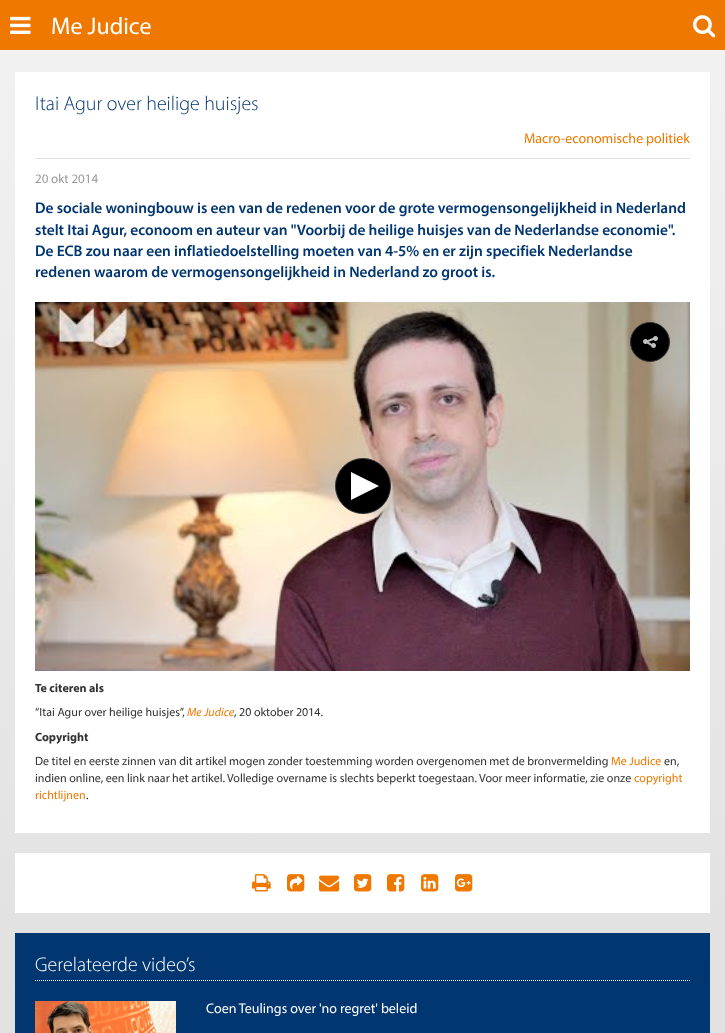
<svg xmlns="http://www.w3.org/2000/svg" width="725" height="1033">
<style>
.a{font:24px Myriad;fill:#fff}
.b{font:300 20px Myriad;fill:#023671}
.c{font:14px Myriad;fill:#ef7900}
.d{font:13px Myriad;fill:#999}
.e{font:600 15.4px Myriad;fill:#023671}
.f{font:bold 12px Myriad;fill:#333}
.g{font:12px Myriad;fill:#333}
.h{font:italic 12px Myriad;fill:#ef7900}
.i{font:12px Myriad;fill:#ef7900}
.j{font:300 20px Myriad;fill:#fff}
.k{font:14px Myriad;fill:#fff}
</style>
<defs>
<linearGradient id="g1" gradientUnits="userSpaceOnUse" x1="362" y1="0" x2="363" y2="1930"><stop offset="0" stop-color="#f2f2f2"/><stop offset="1" stop-color="#d1d1d1"/></linearGradient>
</defs>
<rect width="100%" height="100%" fill="#fff"/>
<path fill="url(#g1)" d="M0 50h725v983H0z"/>
<path fill="#ef7900" d="M0 0h725v50H0z"/>
<image href="1.png" x="10" y="16" width="21" height="18"/>
<image href="2.png" x="693" y="15" width="23" height="23"/>
<path fill="#fff" d="M15 72h695v761H15z"/>
<path fill="#dfdfdf" d="M35 158h655v1H35z"/>
<image href="3.png" x="35" y="302" width="655" height="369"/>
<circle fill="#000" stroke="#333" cx="650" cy="342" r="19.5"/>
<image href="4.png" x="643" y="336" width="15" height="12"/>
<circle fill="#000" stroke="#333" cx="363" cy="486" r="27.5"/>
<path fill="#fff" d="M379 486l-28 14v-28z"/>
<path fill="#fff" d="M15 853h695v60H15z"/>
<image href="5.png" x="252" y="874" width="19" height="18"/>
<image href="6.png" x="287" y="874" width="18" height="18"/>
<image href="7.png" x="319" y="875" width="21" height="17"/>
<image href="8.png" x="354" y="874" width="18" height="18"/>
<image href="9.png" x="387" y="874" width="18" height="18"/>
<image href="10.png" x="421" y="874" width="18" height="18"/>
<image href="11.png" x="455" y="874" width="18" height="18"/>
<path fill="#023671" d="M15 933h695v100H15z"/>
<path fill="none" stroke="#fff" stroke-dasharray="1 1" d="M35 980.5h655"/>
<image href="12.png" x="35" y="1001" width="141" height="32"/>
<text class="a" x="51" y="34">Me Judice</text>
<text class="b" x="35" y="110">Itai Agur over heilige huisjes</text>
<text class="c" x="524" y="143">Macro-economische politiek</text>
<text class="d" x="35" y="183">20 okt 2014</text>
<text class="e" x="35" y="213">De sociale woningbouw is een van de redenen voor de grote vermogensongelijkheid in Nederland</text>
<text class="e" x="35" y="235">stelt Itai Agur, econoom en auteur van "Voorbij de heilige huisjes van de Nederlandse economie".</text>
<text class="e" x="35" y="256">De ECB zou naar een inflatiedoelstelling moeten van 4-5% en er zijn specifiek Nederlandse</text>
<text class="e" x="35" y="277">redenen waarom de vermogensongelijkheid in Nederland zo groot is.</text>
<text class="f" x="35" y="692">Te citeren als</text>
<text class="g" x="35" y="716">“Itai Agur over heilige huisjes”,</text>
<text class="h" x="187" y="716">Me Judice</text>
<text class="g" x="234" y="716">, 20 oktober 2014.</text>
<text class="f" x="35" y="741">Copyright</text>
<text class="g" x="35" y="765">De titel en eerste zinnen van dit artikel mogen zonder toestemming worden overgenomen met de bronvermelding</text>
<text class="i" x="611" y="765">Me Judice</text>
<text class="g" x="664" y="765">en,</text>
<text class="g" x="35" y="782">indien online, een link naar het artikel. Volledige overname is slechts beperkt toegestaan. Voor meer informatie, zie onze</text>
<text class="i" x="634" y="782">copyright</text>
<text class="i" x="35" y="799">richtlijnen</text>
<text class="g" x="86" y="799">.</text>
<text class="j" x="35" y="971">Gerelateerde video’s</text>
<text class="k" x="206" y="1013">Coen Teulings over 'no regret' beleid</text>
</svg>
